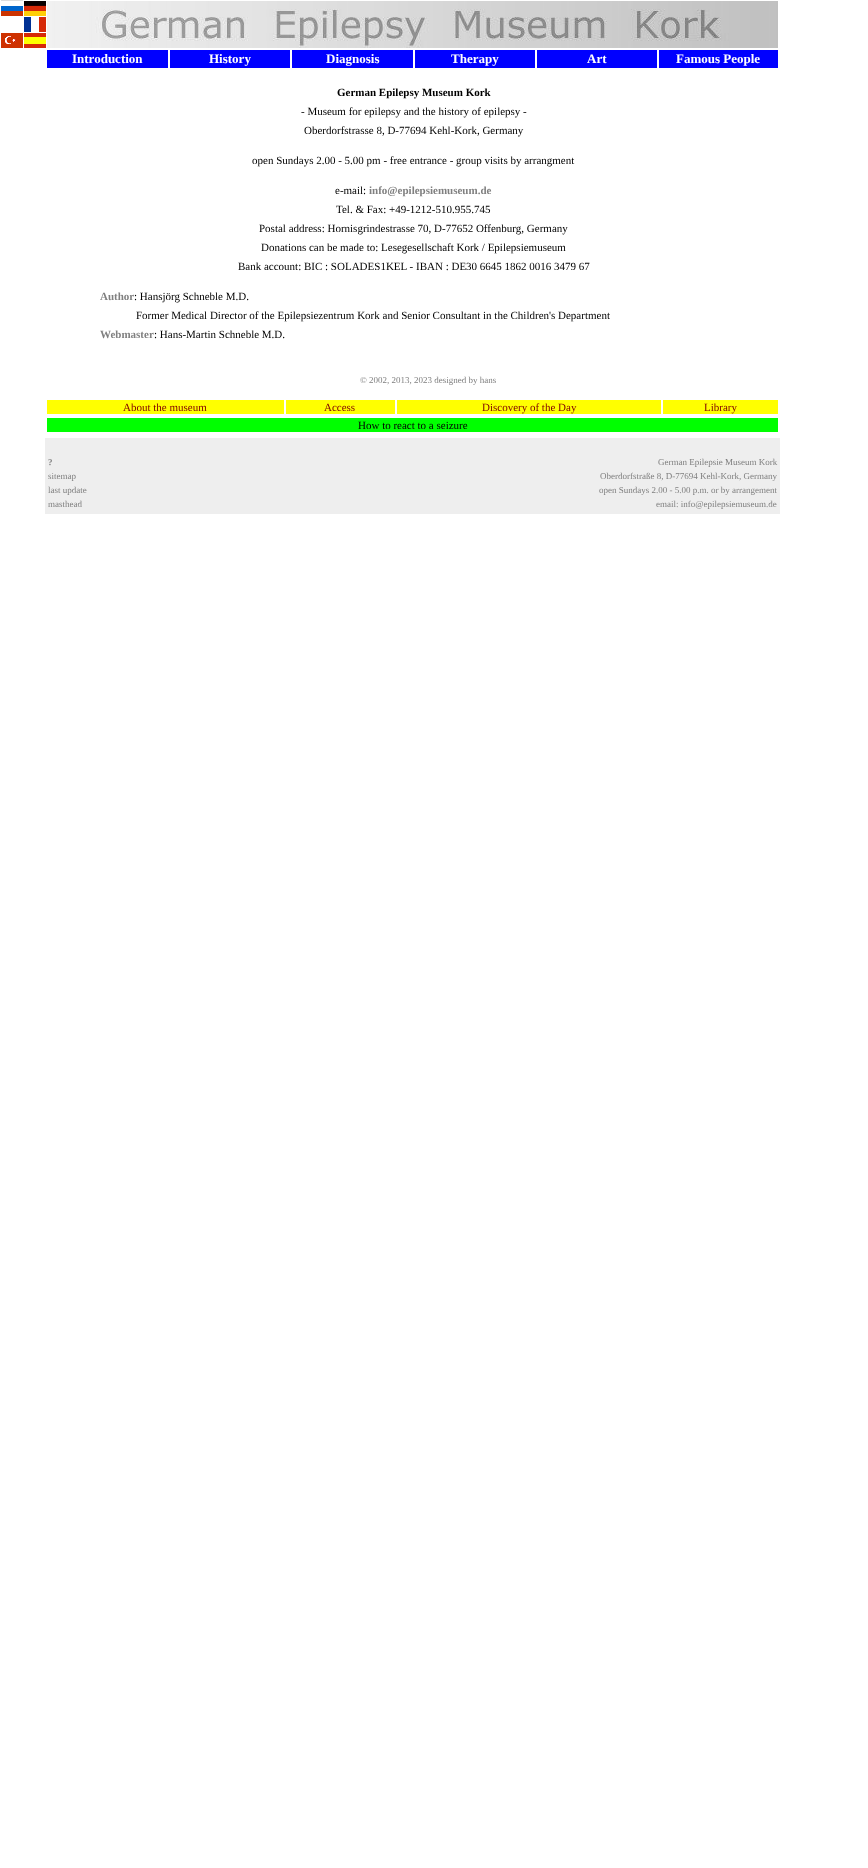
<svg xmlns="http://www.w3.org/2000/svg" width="868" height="1868">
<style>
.a{font:bold 13px Liberation Serif;fill:#fff}
.b{font:bold 11px Liberation Serif;fill:#000}
.c{font:11px Liberation Serif;fill:#000}
.d{font:bold 11px Liberation Serif;fill:#808080}
.e{font:9px Liberation Serif;fill:#808080}
.f{font:11px Liberation Serif;fill:#800000}
.g{font:bold 9px Liberation Serif;fill:#808080}
</style>
<rect width="100%" height="100%" fill="#fff"/>
<image href="1.png" x="1" y="0" width="22" height="16"/>
<image href="2.png" x="24" y="1" width="22" height="15"/>
<image href="3.png" x="47" y="1" width="122" height="47"/>
<image href="4.png" x="169" y="1" width="122" height="47"/>
<image href="5.png" x="291" y="1" width="122" height="47"/>
<image href="6.png" x="413" y="1" width="122" height="47"/>
<image href="7.png" x="535" y="1" width="122" height="47"/>
<image href="8.png" x="657" y="1" width="121" height="47"/>
<image href="9.png" x="24" y="17" width="22" height="15"/>
<image href="10.png" x="1" y="33" width="22" height="15"/>
<image href="11.png" x="24" y="33" width="22" height="15"/>
<path fill="#00f" d="M47 50h731v18H47z"/>
<path fill="none" stroke="#fff" d="M46.5 49.5h122v19H46.5z"/>
<path fill="none" stroke="#fff" d="M169.5 49.5h121v19H169.5z"/>
<path fill="none" stroke="#fff" d="M291.5 49.5h122v19H291.5z"/>
<path fill="none" stroke="#fff" d="M414.5 49.5h121v19H414.5z"/>
<path fill="none" stroke="#fff" d="M536.5 49.5h121v19H536.5z"/>
<path fill="none" stroke="#fff" d="M658.5 49.5h120v19H658.5z"/>
<path fill="#ff0" d="M47 400h731v14H47z"/>
<path fill="none" stroke="#fff" d="M46.5 399.5h238v15H46.5z"/>
<path fill="none" stroke="#fff" d="M285.5 399.5h110v15H285.5z"/>
<path fill="none" stroke="#fff" d="M396.5 399.5h265v15H396.5z"/>
<path fill="none" stroke="#fff" d="M662.5 399.5h116v15H662.5z"/>
<path fill="#0f0" d="M47 418h731v14H47z"/>
<path fill="#eee" d="M45 438h735v76H45z"/>
<text class="a" x="72" y="63">Introduction</text>
<text class="a" x="209" y="63">History</text>
<text class="a" x="326" y="63">Diagnosis</text>
<text class="a" x="451" y="63">Therapy</text>
<text class="a" x="587" y="63">Art</text>
<text class="a" x="676" y="63">Famous People</text>
<text class="b" x="337" y="96">German Epilepsy Museum Kork</text>
<text class="c" x="301" y="115">- Museum for epilepsy and the history of epilepsy -</text>
<text class="c" x="304" y="134">Oberdorfstrasse 8, D-77694 Kehl-Kork, Germany</text>
<text class="c" x="252" y="164">open Sundays 2.00 - 5.00 pm - free entrance - group visits by arrangment</text>
<text class="c" x="335" y="194">e-mail:</text>
<text class="d" x="369" y="194">info@epilepsiemuseum.de</text>
<text class="c" x="336" y="213">Tel. &amp; Fax: +49-1212-510.955.745</text>
<text class="c" x="259" y="232">Postal address: Hornisgrindestrasse 70, D-77652 Offenburg, Germany</text>
<text class="c" x="261" y="251">Donations can be made to: Lesegesellschaft Kork / Epilepsiemuseum</text>
<text class="c" x="238" y="270">Bank account: BIC : SOLADES1KEL - IBAN : DE30 6645 1862 0016 3479 67</text>
<text class="d" x="100" y="300">Author</text>
<text class="c" x="134" y="300">: Hansjörg Schneble M.D.</text>
<text class="c" x="136" y="319">Former Medical Director of the Epilepsiezentrum Kork and Senior Consultant in the Children's Department</text>
<text class="d" x="100" y="338">Webmaster</text>
<text class="c" x="154" y="338">: Hans-Martin Schneble M.D.</text>
<text class="e" x="360" y="383">© 2002, 2013, 2023 designed by hans</text>
<text class="f" x="123" y="411">About the museum</text>
<text class="f" x="324" y="411">Access</text>
<text class="f" x="482" y="411">Discovery of the Day</text>
<text class="f" x="704" y="411">Library</text>
<text class="c" x="358" y="429">How to react to a seizure</text>
<text class="g" x="48" y="465">?</text>
<text class="e" x="48" y="479">sitemap</text>
<text class="e" x="48" y="493">last update</text>
<text class="e" x="48" y="507">masthead</text>
<text class="e" x="658" y="465">German Epilepsie Museum Kork</text>
<text class="e" x="600" y="479">Oberdorfstraße 8, D-77694 Kehl-Kork, Germany</text>
<text class="e" x="599" y="493">open Sundays 2.00 - 5.00 p.m. or by arrangement</text>
<text class="e" x="656" y="507">email: info@epilepsiemuseum.de</text>
</svg>
